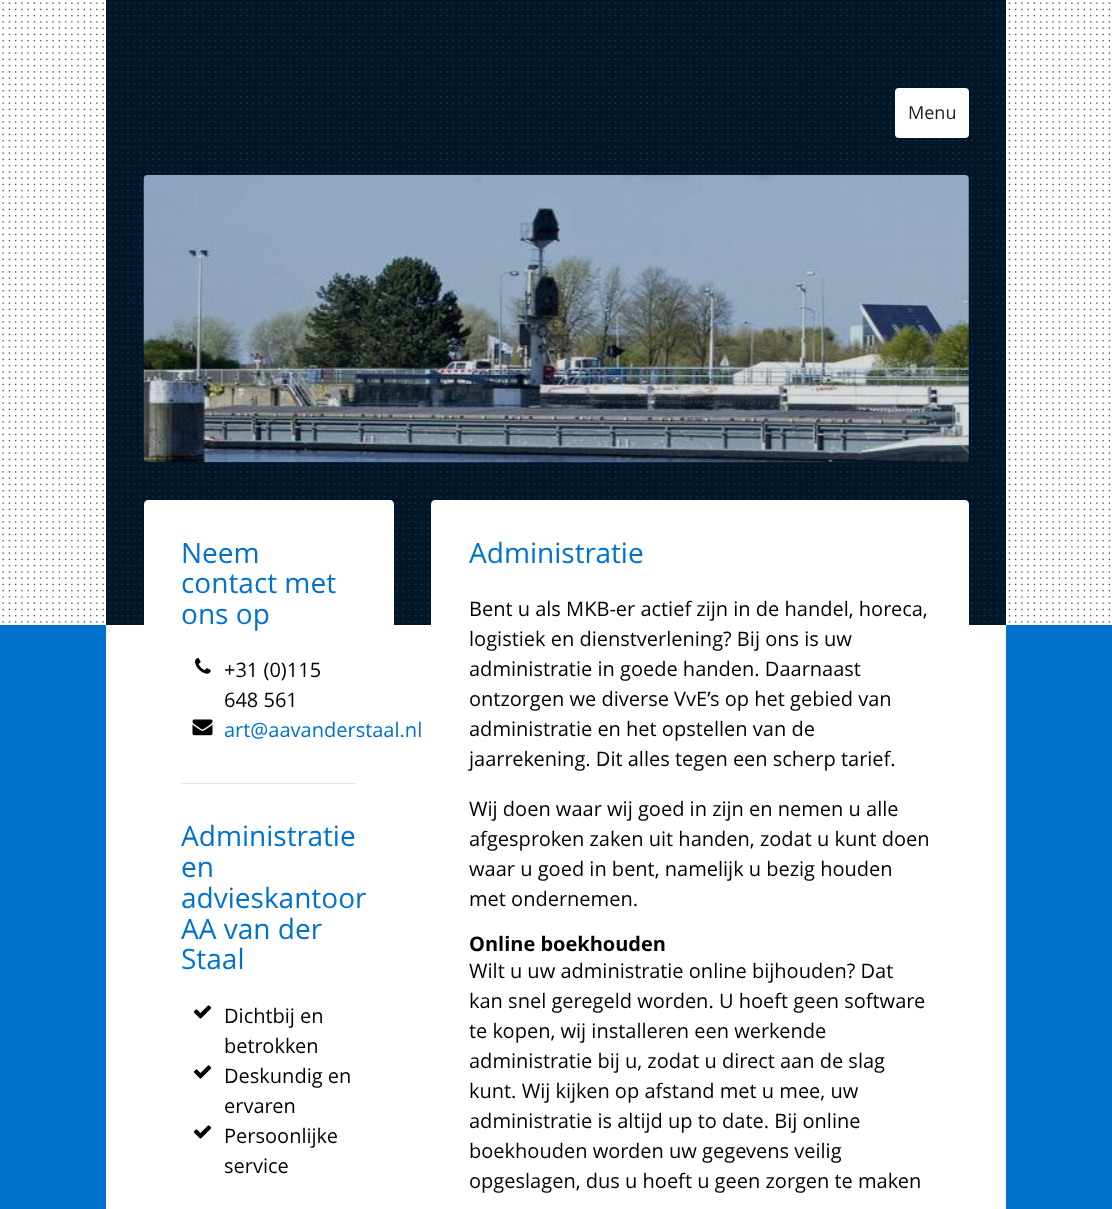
<svg xmlns="http://www.w3.org/2000/svg" width="1112" height="1209">
<style>
.a{font:18px Open Sans;fill:#1c1c1c}
.b{font:28px Open Sans;fill:#0072ce}
.c{font:20px Open Sans;fill:#000}
.d{font:20px Open Sans;fill:#0072ce}
.e{font:bold 20px Open Sans;fill:#000}
</style>
<rect width="100%" height="100%" fill="#0072ce"/>
<path fill="#fff" d="M0 0h1112v625H0z"/>
<image href="1.png" x="2" y="2" width="1109" height="621"/>
<path fill="#fff" d="M106 625h900v584H106z"/>
<path fill="#001629" d="M106 0h900v625H106z"/>
<image href="2.png" x="108" y="2" width="897" height="621"/>
<rect fill="#fff" x="895" y="88" width="74" height="50" rx="4"/>
<image href="3.png" x="143" y="175" width="826" height="288"/>
<path fill="#fff" d="M148 500h242c2 0 4 2 4 4v121h-250v-121c0-2 2-4 4-4z"/>
<image href="4.png" x="195" y="658" width="16" height="16"/>
<image href="5.png" x="192" y="719" width="21" height="17"/>
<path fill="#e6e6e6" d="M181 783h175v1H181z"/>
<image href="6.png" x="193" y="1005" width="19" height="14"/>
<image href="6.png" x="193" y="1065" width="19" height="14"/>
<image href="6.png" x="193" y="1125" width="19" height="14"/>
<path fill="#fff" d="M435 500h530c2 0 4 2 4 4v121h-538v-121c0-2 2-4 4-4z"/>
<text class="a" x="908" y="119">Menu</text>
<text class="b" x="181" y="563">Neem</text>
<text class="b" x="181" y="593">contact met</text>
<text class="b" x="181" y="624">ons op</text>
<text class="c" x="224" y="677">+31 (0)115</text>
<text class="c" x="224" y="707">648 561</text>
<text class="d" x="224" y="737">art@aavanderstaal.nl</text>
<text class="b" x="181" y="846">Administratie</text>
<text class="b" x="181" y="877">en</text>
<text class="b" x="181" y="908">advieskantoor</text>
<text class="b" x="181" y="939">AA van der</text>
<text class="b" x="181" y="969">Staal</text>
<text class="c" x="224" y="1023">Dichtbij en</text>
<text class="c" x="224" y="1053">betrokken</text>
<text class="c" x="224" y="1083">Deskundig en</text>
<text class="c" x="224" y="1113">ervaren</text>
<text class="c" x="224" y="1143">Persoonlijke</text>
<text class="c" x="224" y="1173">service</text>
<text class="b" x="469" y="563">Administratie</text>
<text class="c" x="469" y="616">Bent u als MKB-er actief zijn in de handel, horeca,</text>
<text class="c" x="469" y="646">logistiek en dienstverlening? Bij ons is uw</text>
<text class="c" x="469" y="676">administratie in goede handen. Daarnaast</text>
<text class="c" x="469" y="706">ontzorgen we diverse VvE’s op het gebied van</text>
<text class="c" x="469" y="736">administratie en het opstellen van de</text>
<text class="c" x="469" y="766">jaarrekening. Dit alles tegen een scherp tarief.</text>
<text class="c" x="469" y="816">Wij doen waar wij goed in zijn en nemen u alle</text>
<text class="c" x="469" y="846">afgesproken zaken uit handen, zodat u kunt doen</text>
<text class="c" x="469" y="876">waar u goed in bent, namelijk u bezig houden</text>
<text class="c" x="469" y="906">met ondernemen.</text>
<text class="e" x="469" y="951">Online boekhouden</text>
<text class="c" x="469" y="978">Wilt u uw administratie online bijhouden? Dat</text>
<text class="c" x="469" y="1008">kan snel geregeld worden. U hoeft geen software</text>
<text class="c" x="469" y="1038">te kopen, wij installeren een werkende</text>
<text class="c" x="469" y="1068">administratie bij u, zodat u direct aan de slag</text>
<text class="c" x="469" y="1098">kunt. Wij kijken op afstand met u mee, uw</text>
<text class="c" x="469" y="1128">administratie is altijd up to date. Bij online</text>
<text class="c" x="469" y="1158">boekhouden worden uw gegevens veilig</text>
<text class="c" x="469" y="1188">opgeslagen, dus u hoeft u geen zorgen te maken</text>
</svg>
